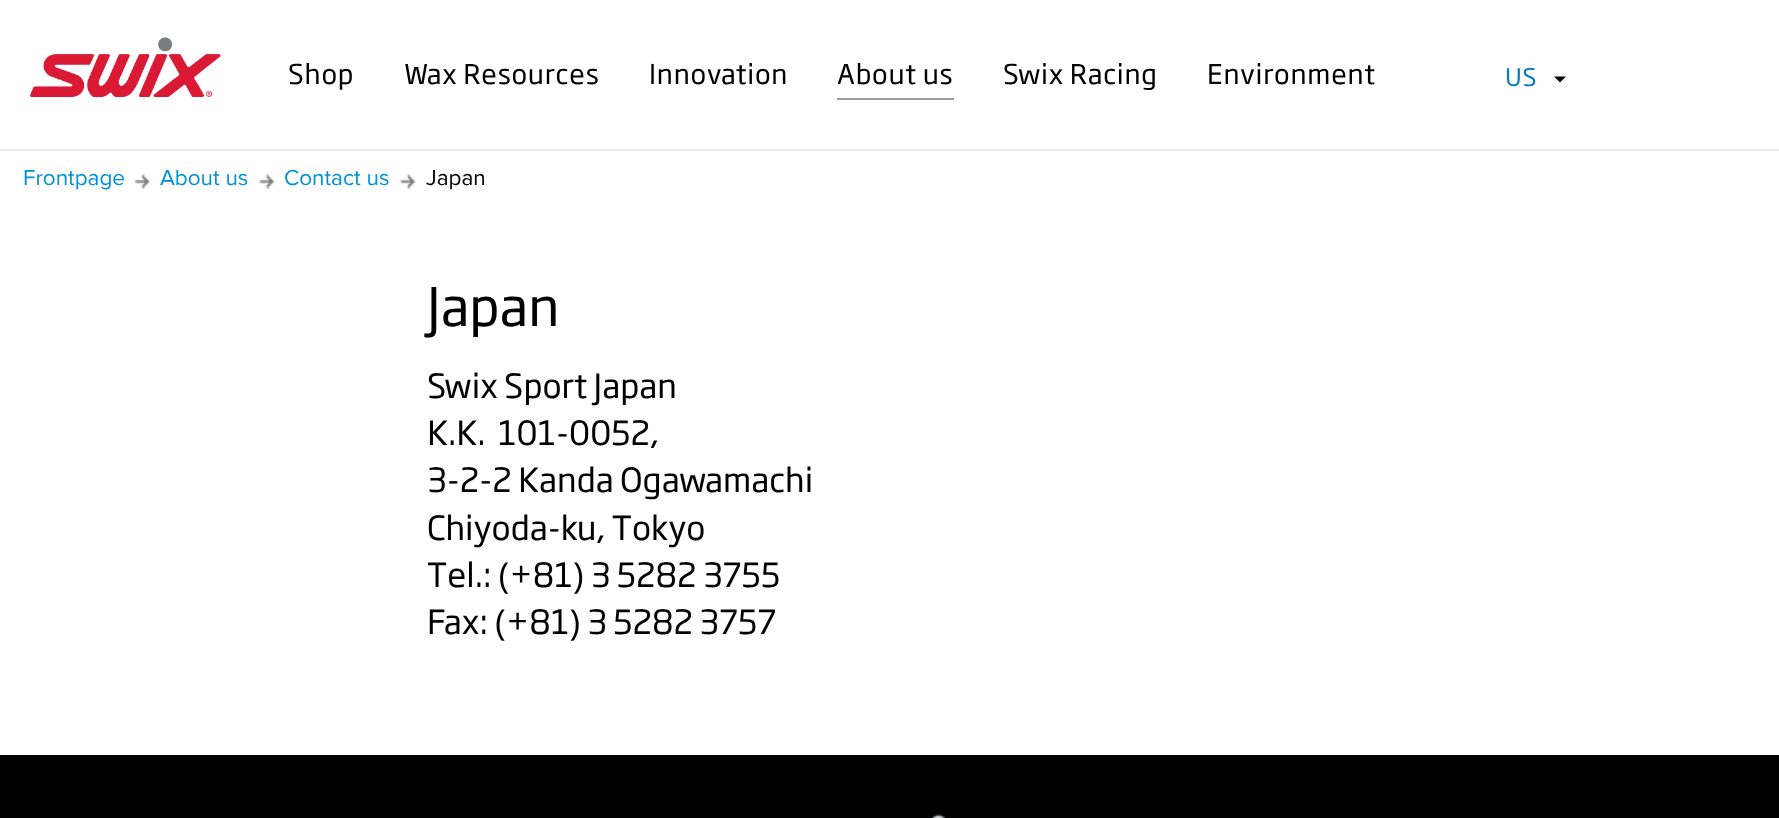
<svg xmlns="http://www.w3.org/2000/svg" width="1779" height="818">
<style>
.a{font:27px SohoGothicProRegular;letter-spacing:0.75px;fill:#000}
.b{font:24px SohoGothicProRegular;letter-spacing:0.75px;fill:#027eb7}
.c{font:22.5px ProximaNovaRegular;fill:#0092d6}
.d{font:22.5px ProximaNovaRegular;fill:#000}
.e{font:52.5px SohoGothicProRegular;fill:#000}
.f{font:33px SohoGothicProRegular;fill:#000}
</style>
<rect width="100%" height="100%" fill="#fff"/>
<path fill="#ebebeb" d="M0 149h1779v2H0z"/>
<image href="1.png" x="30" y="37" width="191" height="60"/>
<path fill="#9a9a98" d="M837 98h117v2H837z"/>
<path fill="#000" d="M1554 76.5h12l-6 6z"/>
<image href="2.png" x="135" y="174" width="15" height="15"/>
<image href="3.png" x="259" y="174" width="16" height="15"/>
<image href="4.png" x="400" y="174" width="16" height="15"/>
<path fill="#000" d="M0 755h1779v63H0z"/>
<image href="5.png" x="931" y="814" width="15" height="4"/>
<text class="a" x="288" y="84">Shop</text>
<text class="a" x="404" y="84">Wax Resources</text>
<text class="a" x="649" y="84">Innovation</text>
<text class="a" x="837" y="84">About us</text>
<text class="a" x="1003" y="84">Swix Racing</text>
<text class="a" x="1207" y="84">Environment</text>
<text class="b" x="1505" y="86">US</text>
<text class="c" x="23" y="185">Frontpage</text>
<text class="c" x="160" y="185">About us</text>
<text class="c" x="284" y="185">Contact us</text>
<text class="d" x="426" y="185">Japan</text>
<text class="e" x="427" y="326">Japan</text>
<text class="f" x="427" y="398">Swix Sport Japan</text>
<text class="f" xml:space="preserve" x="427" y="445">K.K.  101-0052,</text>
<text class="f" x="427" y="492">3-2-2 Kanda Ogawamachi</text>
<text class="f" x="427" y="540">Chiyoda-ku, Tokyo</text>
<text class="f" x="427" y="587">Tel.: (+81) 3 5282 3755</text>
<text class="f" x="427" y="634">Fax: (+81) 3 5282 3757</text>
</svg>
